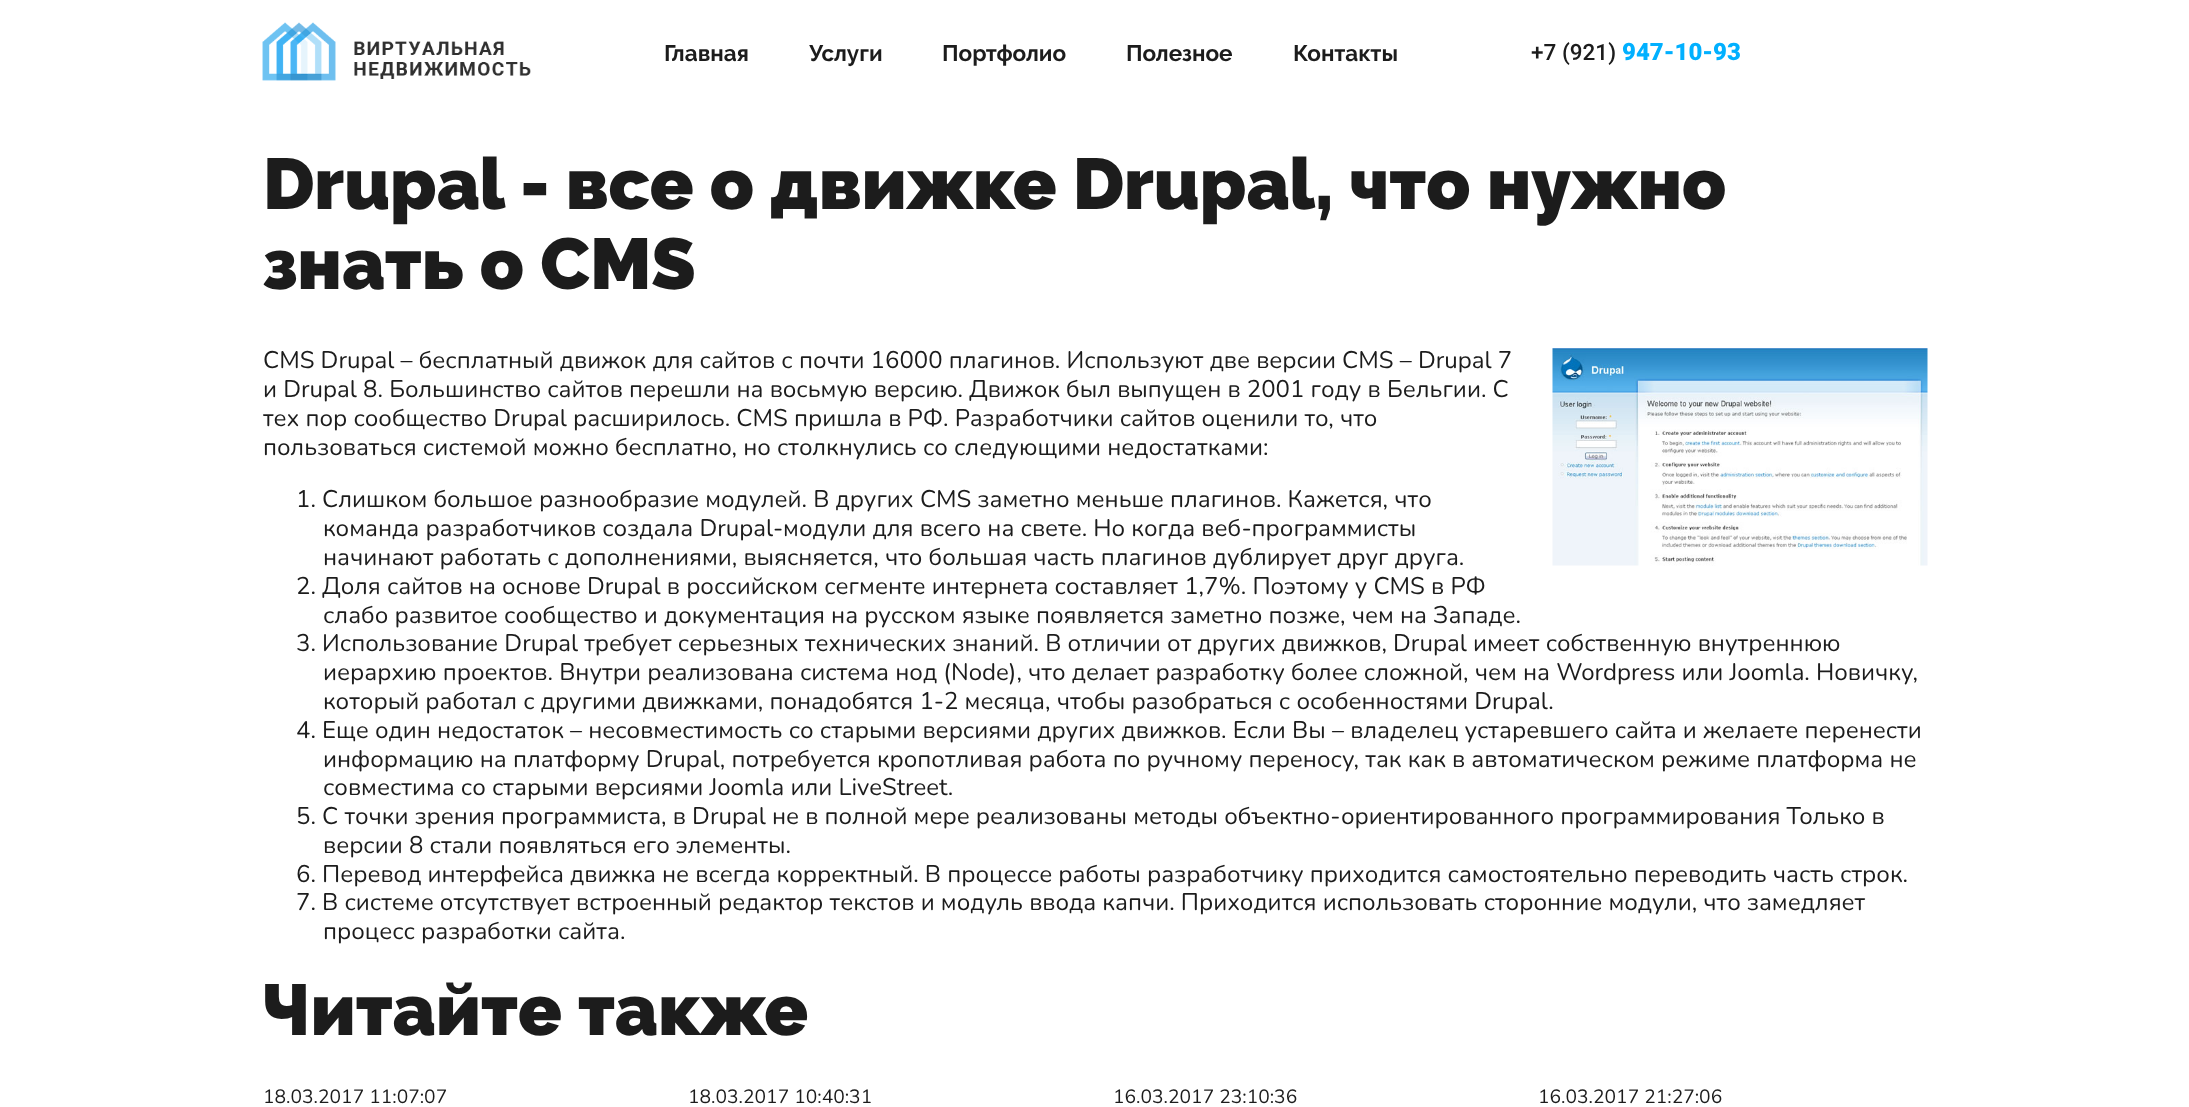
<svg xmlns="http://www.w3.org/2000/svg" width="2189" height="1107">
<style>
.a{font:bold 22.5px Raleway;fill:#1c1c1c}
.b{font:500 22.5px Roboto;fill:#1c1c1c}
.c{font:900 24px Roboto;fill:#01b0ff}
.d{font:900 72px Raleway;fill:#1c1c1c}
.e{font:24px Nunito;fill:#1c1c1c}
.f{font:19.25px Nunito;fill:#1c1c1c}
</style>
<rect width="100%" height="100%" fill="#fff"/>
<image href="1.png" x="262" y="22" width="269" height="59"/>
<image href="2.png" x="1552" y="348" width="376" height="218"/>
<text class="a" x="664" y="61">Главная</text>
<text class="a" x="809" y="61">Услуги</text>
<text class="a" x="942" y="61">Портфолио</text>
<text class="a" x="1126" y="61">Полезное</text>
<text class="a" x="1293" y="61">Контакты</text>
<text class="b" x="1531" y="60">+7 (921)</text>
<text class="c" x="1622" y="60">947-10-93</text>
<text class="d" x="263" y="209">Drupal - все о движке Drupal, что нужно</text>
<text class="d" x="263" y="289">знать о CMS</text>
<text class="e" x="263" y="368">CMS Drupal – бесплатный движок для сайтов с почти 16000 плагинов. Используют две версии CMS – Drupal 7</text>
<text class="e" x="263" y="397">и Drupal 8. Большинство сайтов перешли на восьмую версию. Движок был выпущен в 2001 году в Бельгии. С</text>
<text class="e" x="263" y="426">тех пор сообщество Drupal расширилось. CMS пришла в РФ. Разработчики сайтов оценили то, что</text>
<text class="e" x="263" y="455">пользоваться системой можно бесплатно, но столкнулись со следующими недостатками:</text>
<text class="e" x="296" y="507">1. Слишком большое разнообразие модулей. В других CMS заметно меньше плагинов. Кажется, что</text>
<text class="e" x="323" y="536">команда разработчиков создала Drupal-модули для всего на свете. Но когда веб-программисты</text>
<text class="e" x="323" y="565">начинают работать с дополнениями, выясняется, что большая часть плагинов дублирует друг друга.</text>
<text class="e" x="296" y="594">2. Доля сайтов на основе Drupal в российском сегменте интернета составляет 1,7%. Поэтому у CMS в РФ</text>
<text class="e" x="323" y="623">слабо развитое сообщество и документация на русском языке появляется заметно позже, чем на Западе.</text>
<text class="e" x="296" y="651">3. Использование Drupal требует серьезных технических знаний. В отличии от других движков, Drupal имеет собственную внутреннюю</text>
<text class="e" x="323" y="680">иерархию проектов. Внутри реализована система нод (Node), что делает разработку более сложной, чем на Wordpress или Joomla. Новичку,</text>
<text class="e" x="323" y="709">который работал с другими движками, понадобятся 1-2 месяца, чтобы разобраться с особенностями Drupal.</text>
<text class="e" x="296" y="738">4. Еще один недостаток – несовместимость со старыми версиями других движков. Если Вы – владелец устаревшего сайта и желаете перенести</text>
<text class="e" x="323" y="767">информацию на платформу Drupal, потребуется кропотливая работа по ручному переносу, так как в автоматическом режиме платформа не</text>
<text class="e" x="323" y="795">совместима со старыми версиями Joomla или LiveStreet.</text>
<text class="e" x="296" y="824">5. С точки зрения программиста, в Drupal не в полной мере реализованы методы объектно-ориентированного программирования Только в</text>
<text class="e" x="323" y="853">версии 8 стали появляться его элементы.</text>
<text class="e" x="296" y="882">6. Перевод интерфейса движка не всегда корректный. В процессе работы разработчику приходится самостоятельно переводить часть строк.</text>
<text class="e" x="296" y="910">7. В системе отсутствует встроенный редактор текстов и модуль ввода капчи. Приходится использовать сторонние модули, что замедляет</text>
<text class="e" x="323" y="939">процесс разработки сайта.</text>
<text class="d" x="263" y="1035">Читайте также</text>
<text class="f" x="263" y="1103">18.03.2017 11:07:07</text>
<text class="f" x="688" y="1103">18.03.2017 10:40:31</text>
<text class="f" x="1113" y="1103">16.03.2017 23:10:36</text>
<text class="f" x="1538" y="1103">16.03.2017 21:27:06</text>
</svg>
